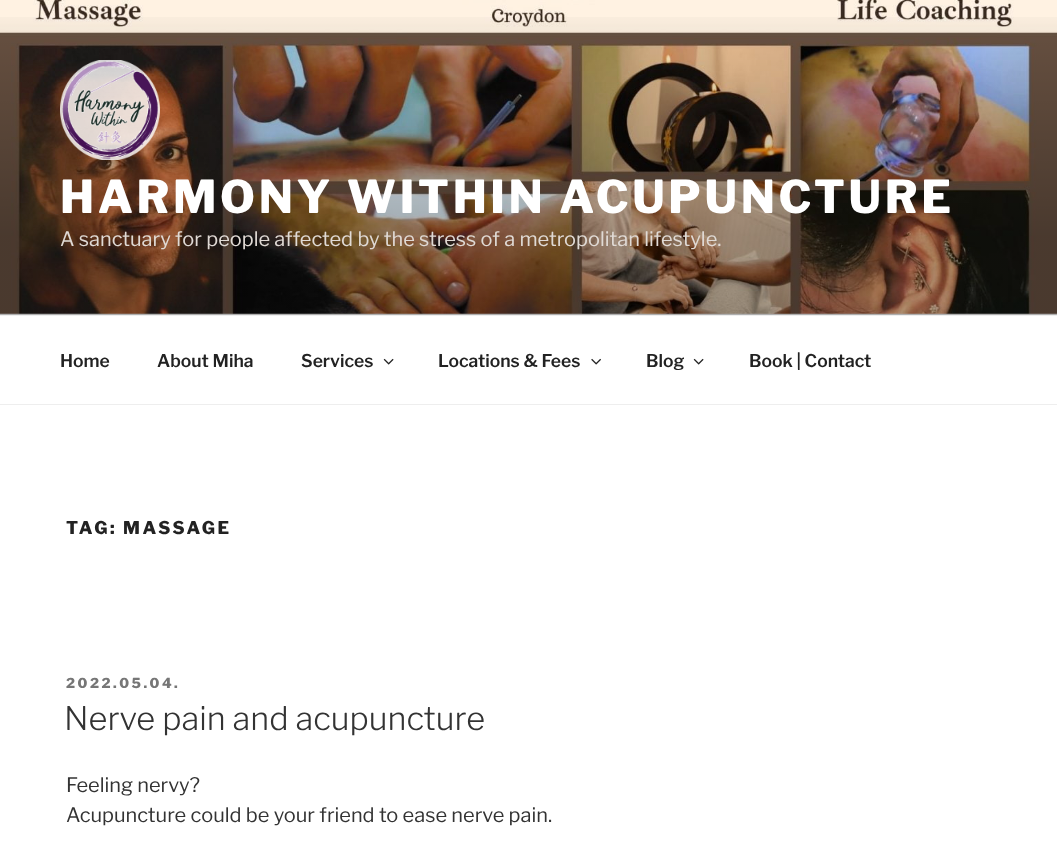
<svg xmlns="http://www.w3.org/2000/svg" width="1057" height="857">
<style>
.a{font:100 45px Libre Franklin;letter-spacing:3.6px;fill:#fff}
.b{font:100 20px 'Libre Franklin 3';fill:#e0dad5}
.c{font:100 17.5px 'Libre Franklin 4';fill:#222}
.d{font:100 17.5px Libre Franklin;letter-spacing:2.5px;fill:#222}
.e{font:100 13.75px Libre Franklin;letter-spacing:2.5px;fill:#767676}
.f{font:100 32.5px 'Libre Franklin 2';fill:#333}
.g{font:100 20px 'Libre Franklin 3';fill:#333}
</style>
<defs>
<linearGradient id="g1" gradientUnits="userSpaceOnUse" x1="529" y1="0" x2="529" y2="315"><stop offset="0" stop-color="#000" stop-opacity="0"/><stop offset="0.75" stop-color="#000" stop-opacity="0.3"/><stop offset="1" stop-color="#000" stop-opacity="0.3"/></linearGradient>
</defs>
<rect width="100%" height="100%" fill="#fff"/>
<path fill="#fafafa" d="M0 313h1057v2H0z"/>
<image href="1.png" x="0" y="0" width="1057" height="314"/>
<path fill="url(#g1)" d="M0 17h1057v298H0z"/>
<image href="2.png" x="60" y="60" width="100" height="100"/>
<path fill="#eee" d="M0 315h1057v1H0z"/>
<path fill="#eee" d="M0 404h1057v1H0z"/>
<image href="3.png" x="383" y="358" width="11" height="7"/>
<image href="4.png" x="591" y="358" width="10" height="7"/>
<image href="3.png" x="693" y="358" width="11" height="7"/>
<text class="a" x="60" y="213">HARMONY WITHIN ACUPUNCTURE</text>
<text class="b" x="60" y="246">A sanctuary for people affected by the stress of a metropolitan lifestyle.</text>
<text class="c" x="60" y="367">Home</text>
<text class="c" x="157" y="367">About Miha</text>
<text class="c" x="301" y="367">Services</text>
<text class="c" x="438" y="367">Locations &amp; Fees</text>
<text class="c" x="646" y="367">Blog</text>
<text class="c" x="749" y="367">Book | Contact</text>
<text class="d" x="66" y="534">TAG: MASSAGE</text>
<text class="e" x="66" y="688">2022.05.04.</text>
<text class="f" x="64" y="730">Nerve pain and acupuncture</text>
<text class="g" x="66" y="792">Feeling nervy?</text>
<text class="g" x="66" y="822">Acupuncture could be your friend to ease nerve pain.</text>
</svg>
